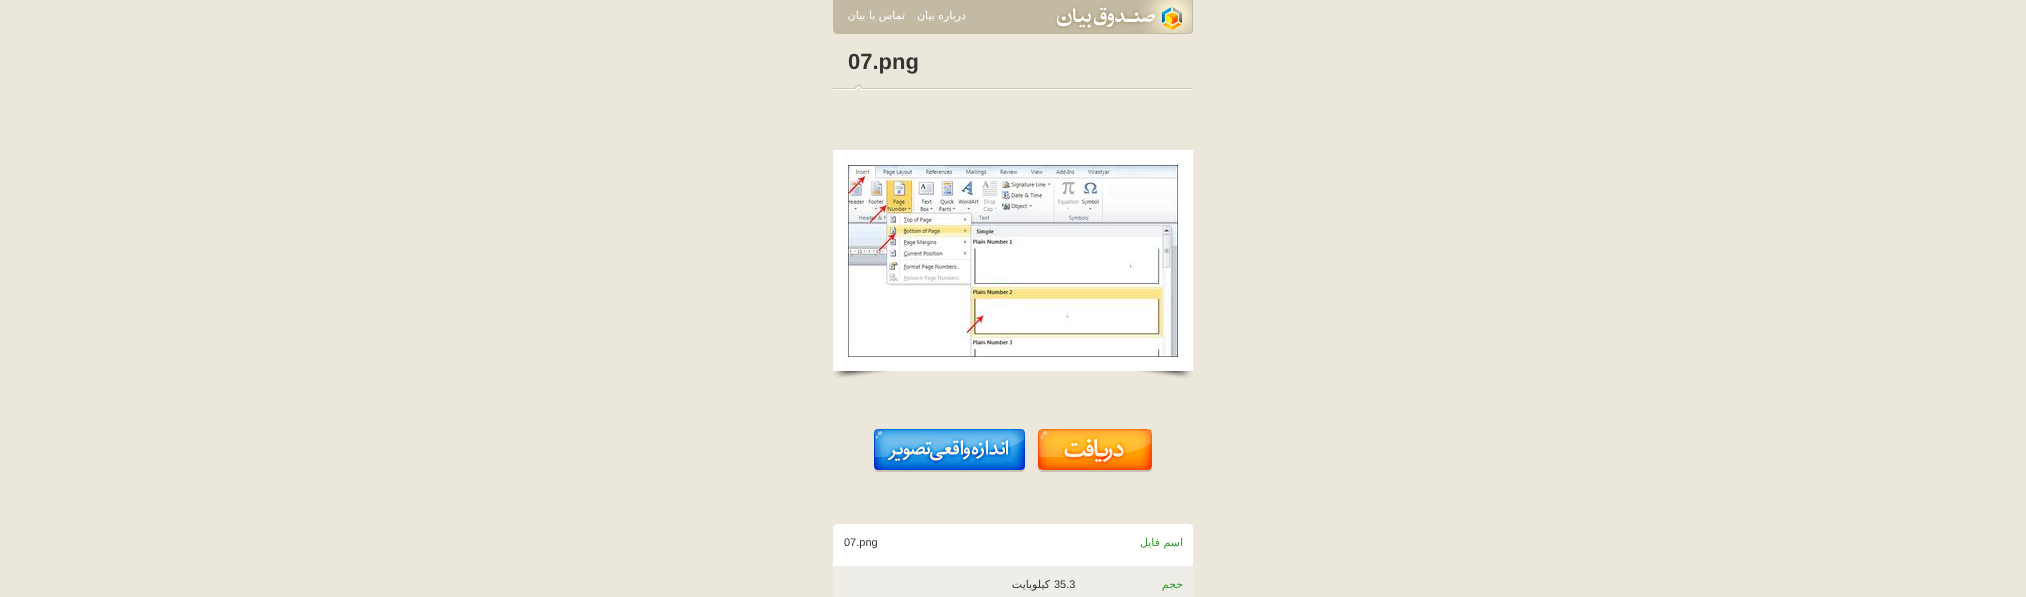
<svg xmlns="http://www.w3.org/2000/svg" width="2026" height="597">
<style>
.a{font:11px DejaVu Sans;direction:rtl;fill:#fff}
.b{font:bold 22px Liberation Sans;fill:#333}
.c{font:11px DejaVu Sans;direction:rtl;fill:#393}
.d{font:11px Liberation Sans;fill:#333}
.e{font:11px DejaVu Sans;direction:rtl;fill:#333}
</style>
<rect width="100%" height="100%" fill="#ebe7da"/>
<path fill="#c2baa2" d="M833 0h360v29c0 3-2 5-5 5h-350c-3 0-5-2-5-5z"/>
<image href="1.png" x="1054" y="0" width="139" height="34"/>
<image href="2.png" x="833" y="84" width="360" height="6"/>
<path fill="#fff" d="M833 150h360v221H833z"/>
<image href="3.png" x="833" y="371" width="360" height="8"/>
<image href="4.png" x="833" y="371" width="59" height="7"/>
<image href="5.png" x="848" y="165" width="330" height="192"/>
<image href="6.png" x="1038" y="429" width="114" height="43"/>
<image href="7.png" x="874" y="429" width="151" height="43"/>
<path fill="#fff" d="M833 524h360v42H833z"/>
<image href="8.png" x="1189" y="524" width="4" height="3"/>
<image href="9.png" x="833" y="524" width="4" height="3"/>
<path fill="#eeede7" d="M833 566h360v31H833z"/>
<text class="a" x="966" y="19">درباره بیان</text>
<text class="a" x="905" y="19">تماس با بیان</text>
<text class="b" x="848" y="69">07.png</text>
<text class="c" x="1183" y="546">اسم فایل</text>
<text class="d" x="844" y="546">07.png</text>
<text class="c" x="1183" y="588">حجم</text>
<text class="d" x="1054" y="588">35.3</text>
<text class="e" x="1050" y="588">کیلوبایت</text>
</svg>
